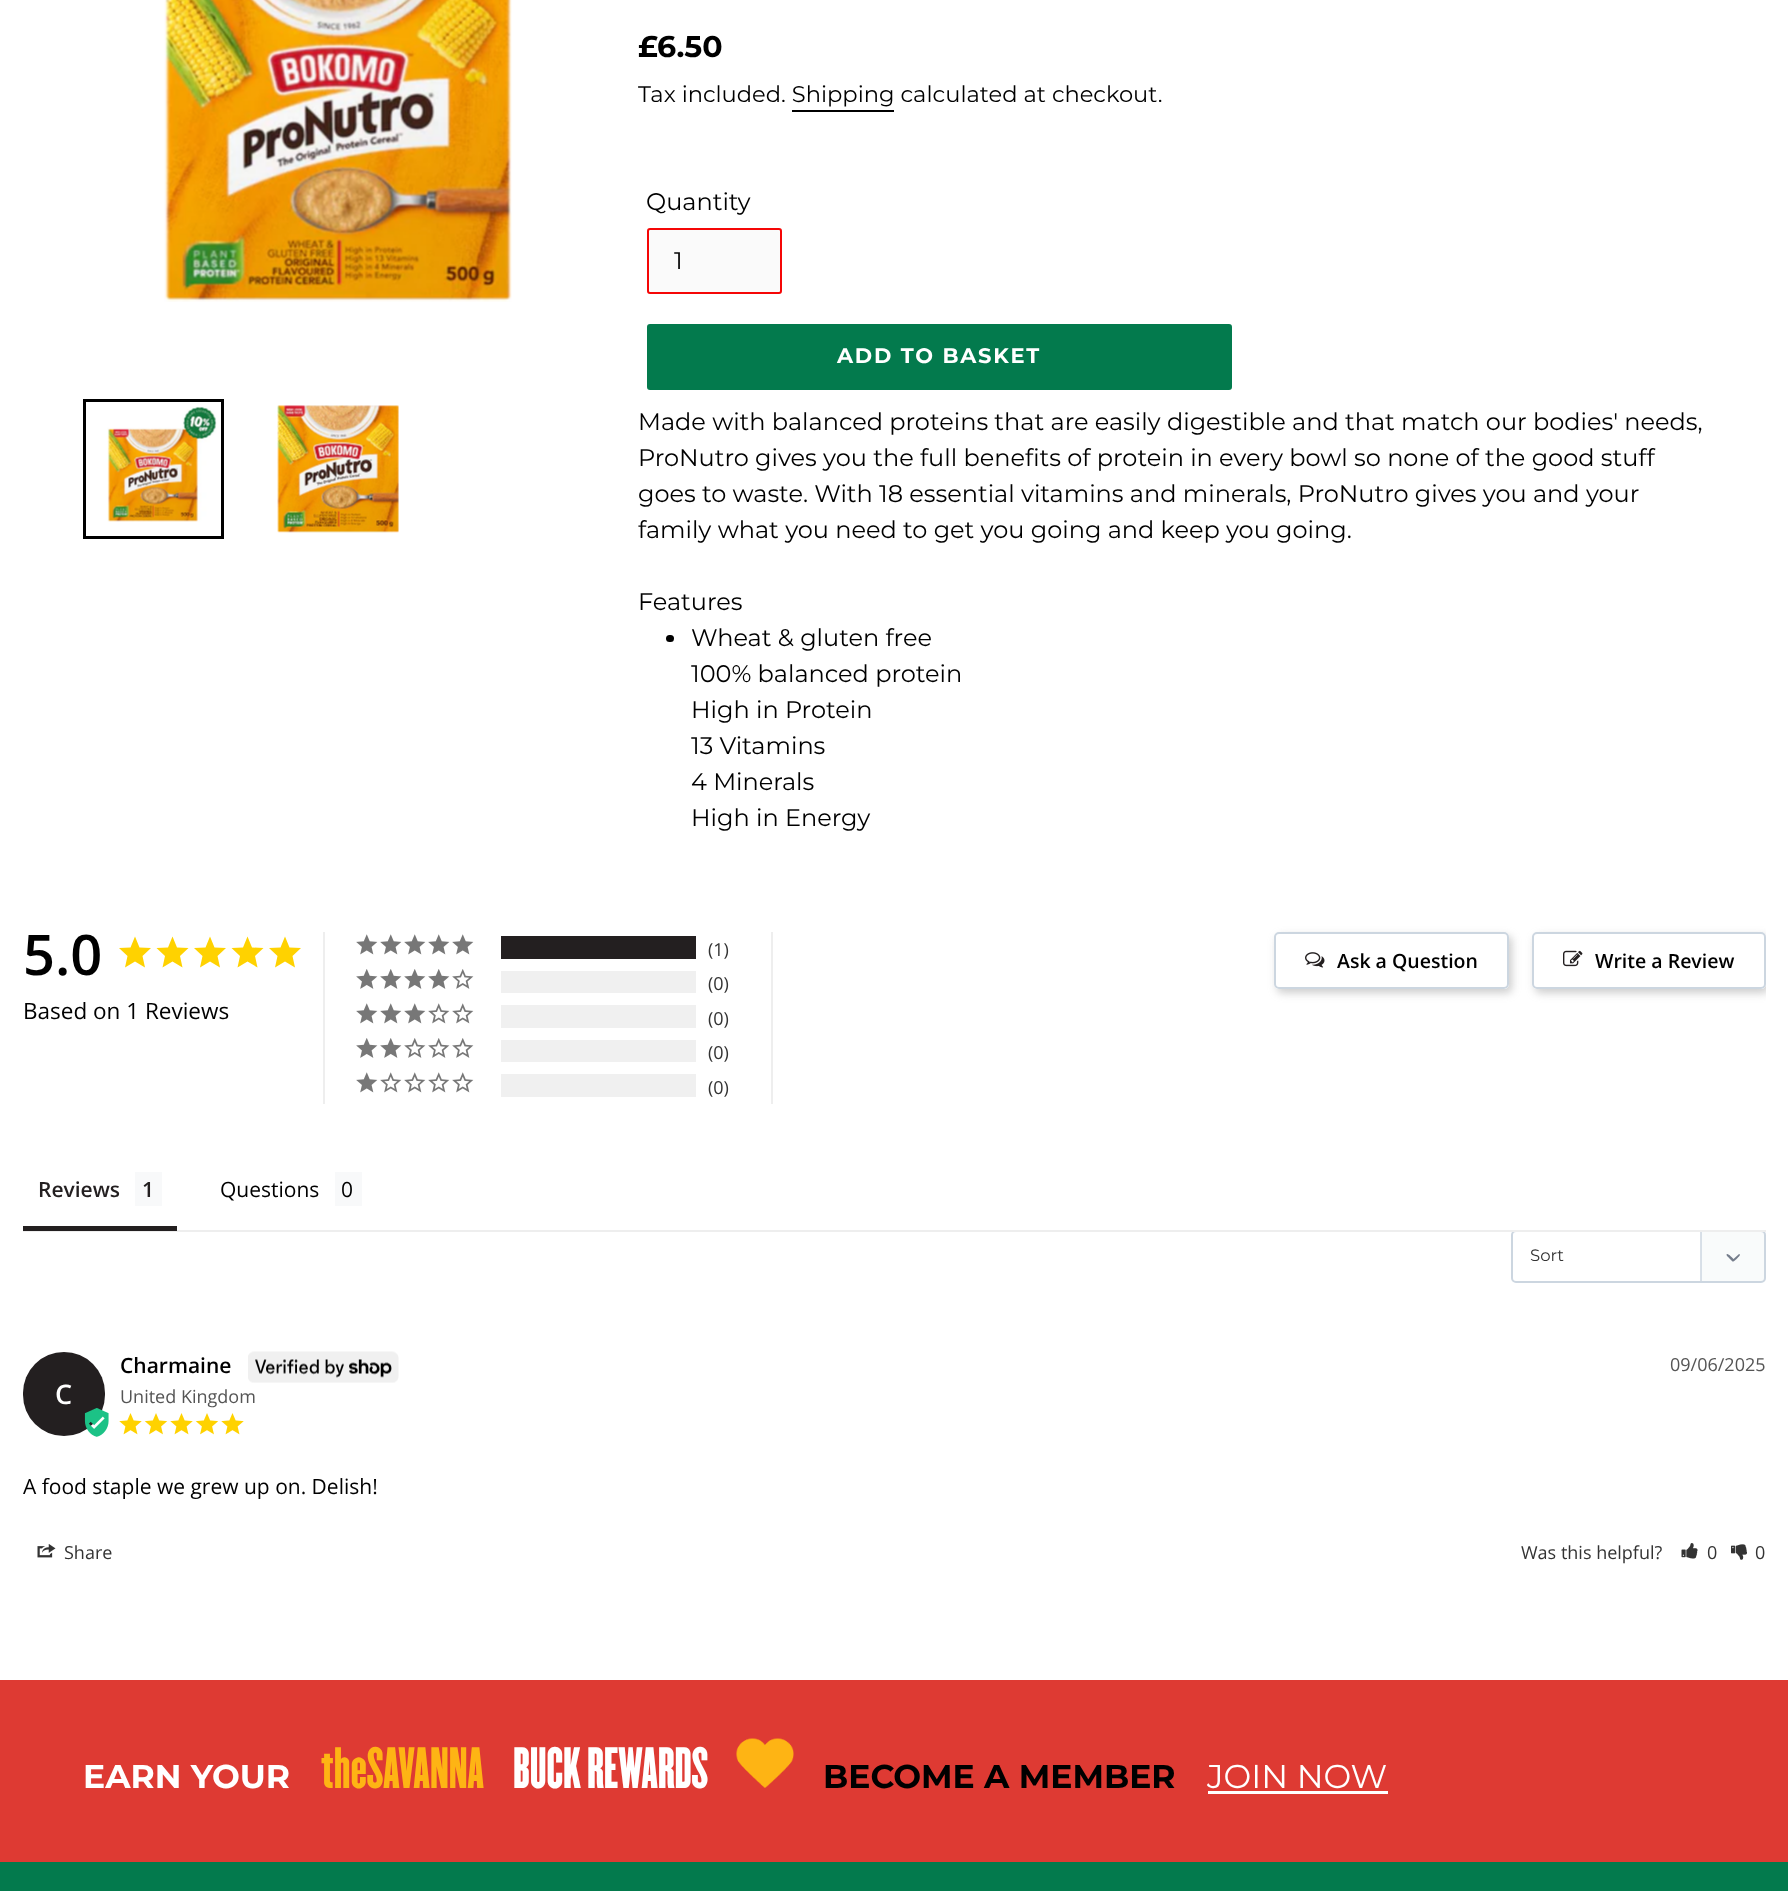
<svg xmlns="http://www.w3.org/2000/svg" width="1788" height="1891">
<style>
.a{font:bold 30px Montserrat;fill:#000}
.b{font:22.6px Montserrat;fill:#000}
.c{font:24px Montserrat;fill:#000}
.d{font:bold 21px Montserrat;letter-spacing:1.75px;fill:#fff}
.e{font:600 56px Open Sans;fill:#000}
.f{font:22.5px Open Sans;fill:#000}
.g{font:18px Open Sans;fill:#333}
.h{font:600 19.5px Open Sans;fill:#000}
.i{font:600 21px Open Sans;fill:#231f20}
.j{font:21px Open Sans;fill:#000}
.k{font:16.5px Montserrat;fill:#333}
.l{font:600 21px Open Sans;fill:#000}
.m{font:18px Open Sans;fill:#555}
.n{font:600 27px Open Sans;fill:#fff}
.o{font:bold 33px Montserrat;fill:#fff}
.p{font:500 51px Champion;fill:#feb414}
.q{font:500 51px Champion;fill:#fff}
.r{font:bold 33px Montserrat;fill:#000}
.s{font:33px Montserrat;fill:#fff}
</style>
<defs>
<clipPath id="clip1"><path d="M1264 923h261v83h-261zm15 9h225c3 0 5 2 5 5v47c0 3-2 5-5 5h-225c-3 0-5-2-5-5v-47c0-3 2-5 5-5z" clip-rule="evenodd"/></clipPath>
<clipPath id="clip2"><path d="M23 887h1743v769H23z"/></clipPath>
<clipPath id="clip3"><path d="M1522 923h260v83h-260zm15 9h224c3 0 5 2 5 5v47c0 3-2 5-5 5h-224c-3 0-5-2-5-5v-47c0-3 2-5 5-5z" clip-rule="evenodd"/></clipPath>
</defs>
<rect width="100%" height="100%" fill="#fff"/>
<path fill="#d9e0e8" d="M1700 1230h1v53H1700z"/>
<image href="1.png" x="164" y="0" width="348" height="302"/>
<path fill="none" stroke="#000" stroke-width="3" d="M84.5 400.5h138v137H84.5z"/>
<image href="2.png" x="107" y="406" width="110" height="116"/>
<image href="3.png" x="277" y="405" width="122" height="128"/>
<path fill="#000" d="M792 110h102v2H792z"/>
<rect fill="#fafafa" stroke="#f50606" stroke-width="2" x="648" y="229" width="133" height="64" rx="2"/>
<rect fill="#037a4d" stroke="#037a4d" stroke-width="2" x="648" y="325" width="583" height="64" rx="2"/>
<rect fill="#000" x="666" y="635" width="8" height="7" rx="3.5"/>
<path fill="#ffd200" d="M135 961.5l-10 6l2.5-11.5l-8.5-8l11.5-.5l4.5-11l4.5 11l11.5 .5l-8.5 8l2.5 11.5z"/>
<path fill="#ffd200" d="M172.5 961.5l-10 6l2.5-11.5l-8.5-8l11.5-.5l4.5-11l4.5 11l11.5 .5l-8.5 8l2.5 11.5z"/>
<path fill="#ffd200" d="M210 961.5l-10 6l2.5-11.5l-8.5-8l11.5-.5l4.5-11l4.5 11l11.5 .5l-8.5 8l2.5 11.5z"/>
<path fill="#ffd200" d="M247.5 961.5l-10 6l2.5-11.5l-8.5-8l11.5-.5l4.5-11l4.5 11l11.5 .5l-8.5 8l2.5 11.5z"/>
<path fill="#ffd200" d="M285 961.5l-10 6l2.5-11.5l-8.5-8l11.5-.5l4.5-11l4.5 11l11.5 .5l-8.5 8l2.5 11.5z"/>
<path fill="#eee" d="M771 932h2v172H771z"/>
<path fill="#eee" d="M323 932h2v172H323z"/>
<image href="4.png" x="356" y="934" width="118" height="21"/>
<path fill="#231f20" d="M501 936h195v23H501z"/>
<image href="5.png" x="356" y="969" width="118" height="20"/>
<path fill="#f0f0f0" d="M501 971h195v22H501z"/>
<image href="6.png" x="356" y="1003" width="118" height="21"/>
<path fill="#f0f0f0" d="M501 1005h195v23H501z"/>
<image href="7.png" x="356" y="1038" width="118" height="20"/>
<path fill="#f0f0f0" d="M501 1040h195v22H501z"/>
<image href="8.png" x="356" y="1072" width="118" height="21"/>
<path fill="#f0f0f0" d="M501 1074h195v23H501z"/>
<g clip-path="url(#clip1)">
<rect fill="#8888886b" filter="blur(4px)" x="1277" y="936" width="235" height="57" rx="5"/>
</g>
<rect fill="none" stroke="#ccd6e0" stroke-width="2" x="1275" y="933" width="233" height="55" rx="4"/>
<image href="9.png" x="1305" y="952" width="20" height="16"/>
<g clip-path="url(#clip2)">
<g clip-path="url(#clip3)">
<rect fill="#8888886b" filter="blur(4px)" x="1535" y="936" width="234" height="57" rx="5"/>
</g>
</g>
<rect fill="none" stroke="#ccd6e0" stroke-width="2" x="1533" y="933" width="232" height="55" rx="4"/>
<image href="10.png" x="1563" y="950" width="20" height="17"/>
<path fill="#f9fbfb" d="M1701 1230h60c3 0 5 2 5 5v43c0 3-2 5-5 5h-60z"/>
<path fill="#d7dfe7" d="M1701 1230h1v53H1701z"/>
<path fill="#757d8b" d="M1738.5 1254.5l.5-.5c2.5 .5-1 3.5-1 3.5c-1 1-4 4.5-5.5 4l-3-3c0-.5-4.5-3.5-2.5-4.5c1.5-.5 5.5 4 6.5 5z"/>
<rect fill="none" stroke="#ccd6e0" stroke-width="2" x="1512" y="1231" width="253" height="51" rx="4"/>
<path fill="#eee" d="M23 1230h1743v2H23z"/>
<path fill="#231f20" d="M23 1226h154v5H23z"/>
<path fill="#f8f9fa" d="M135 1172h27v34H135z"/>
<path fill="#f8f9fa" d="M335 1172h27v34H335z"/>
<image href="11.png" x="248" y="1351" width="151" height="32"/>
<rect fill="#231f20" x="23" y="1352" width="82" height="84" rx="41"/>
<image href="12.png" x="84" y="1408" width="25" height="29"/>
<image href="13.png" x="119" y="1413" width="23" height="22"/>
<image href="14.png" x="144" y="1413" width="24" height="22"/>
<image href="13.png" x="170" y="1413" width="23" height="22"/>
<image href="14.png" x="195" y="1413" width="24" height="22"/>
<image href="13.png" x="221" y="1413" width="23" height="22"/>
<image href="15.png" x="37" y="1544" width="19" height="14"/>
<image href="16.png" x="1681" y="1543" width="17" height="16"/>
<image href="17.png" x="1731" y="1544" width="16" height="16"/>
<path fill="#de3a33" d="M0 1680h1788v182H0z"/>
<image href="18.png" x="736" y="1738" width="58" height="50"/>
<path fill="#fff" d="M1208 1791h180v3H1208z"/>
<path fill="#037a4d" d="M0 1862h1788v29H0z"/>
<text class="a" x="638" y="57">£6.50</text>
<text class="b" x="638" y="102">Tax included. Shipping calculated at checkout.</text>
<text class="c" x="646" y="210">Quantity</text>
<text class="c" x="674" y="269">1</text>
<text class="d" x="837" y="363">ADD TO BASKET</text>
<text class="c" x="638" y="430">Made with balanced proteins that are easily digestible and that match our bodies' needs,</text>
<text class="c" x="638" y="466">ProNutro gives you the full benefits of protein in every bowl so none of the good stuff</text>
<text class="c" x="638" y="502">goes to waste. With 18 essential vitamins and minerals, ProNutro gives you and your</text>
<text class="c" x="638" y="538">family what you need to get you going and keep you going.</text>
<text class="c" x="638" y="610">Features</text>
<text class="c" x="691" y="646">Wheat &amp; gluten free</text>
<text class="c" x="691" y="682">100% balanced protein</text>
<text class="c" x="691" y="718">High in Protein</text>
<text class="c" x="691" y="754">13 Vitamins</text>
<text class="c" x="691" y="790">4 Minerals</text>
<text class="c" x="691" y="826">High in Energy</text>
<text class="e" x="23" y="975">5.0</text>
<text class="f" x="23" y="1019">Based on 1 Reviews</text>
<text class="g" x="708" y="956">(1)</text>
<text class="g" x="708" y="990">(0)</text>
<text class="g" x="708" y="1025">(0)</text>
<text class="g" x="708" y="1059">(0)</text>
<text class="g" x="708" y="1094">(0)</text>
<text class="h" x="1337" y="968">Ask a Question</text>
<text class="h" x="1595" y="968">Write a Review</text>
<text class="i" x="38" y="1197">Reviews</text>
<text class="i" x="142" y="1197">1</text>
<text class="j" x="220" y="1197">Questions</text>
<text class="j" x="341" y="1197">0</text>
<text class="k" x="1530" y="1261">Sort</text>
<text class="l" x="120" y="1373">Charmaine</text>
<text class="m" x="1670" y="1371">09/06/2025</text>
<text class="n" x="55" y="1404">C</text>
<text class="m" x="120" y="1403">United Kingdom</text>
<text class="j" x="23" y="1494">A food staple we grew up on. Delish!</text>
<text class="g" x="64" y="1559">Share</text>
<text class="g" x="1521" y="1559">Was this helpful?</text>
<text class="g" x="1707" y="1559">0</text>
<text class="g" x="1755" y="1559">0</text>
<text class="o" x="83" y="1788">EARN YOUR</text>
<text class="p" x="321" y="1788">theSAVANNA</text>
<text class="q" x="513" y="1788">BUCK REWARDS</text>
<text class="r" x="823" y="1788">BECOME A MEMBER</text>
<text class="s" x="1207" y="1788">JOIN NOW</text>
</svg>
